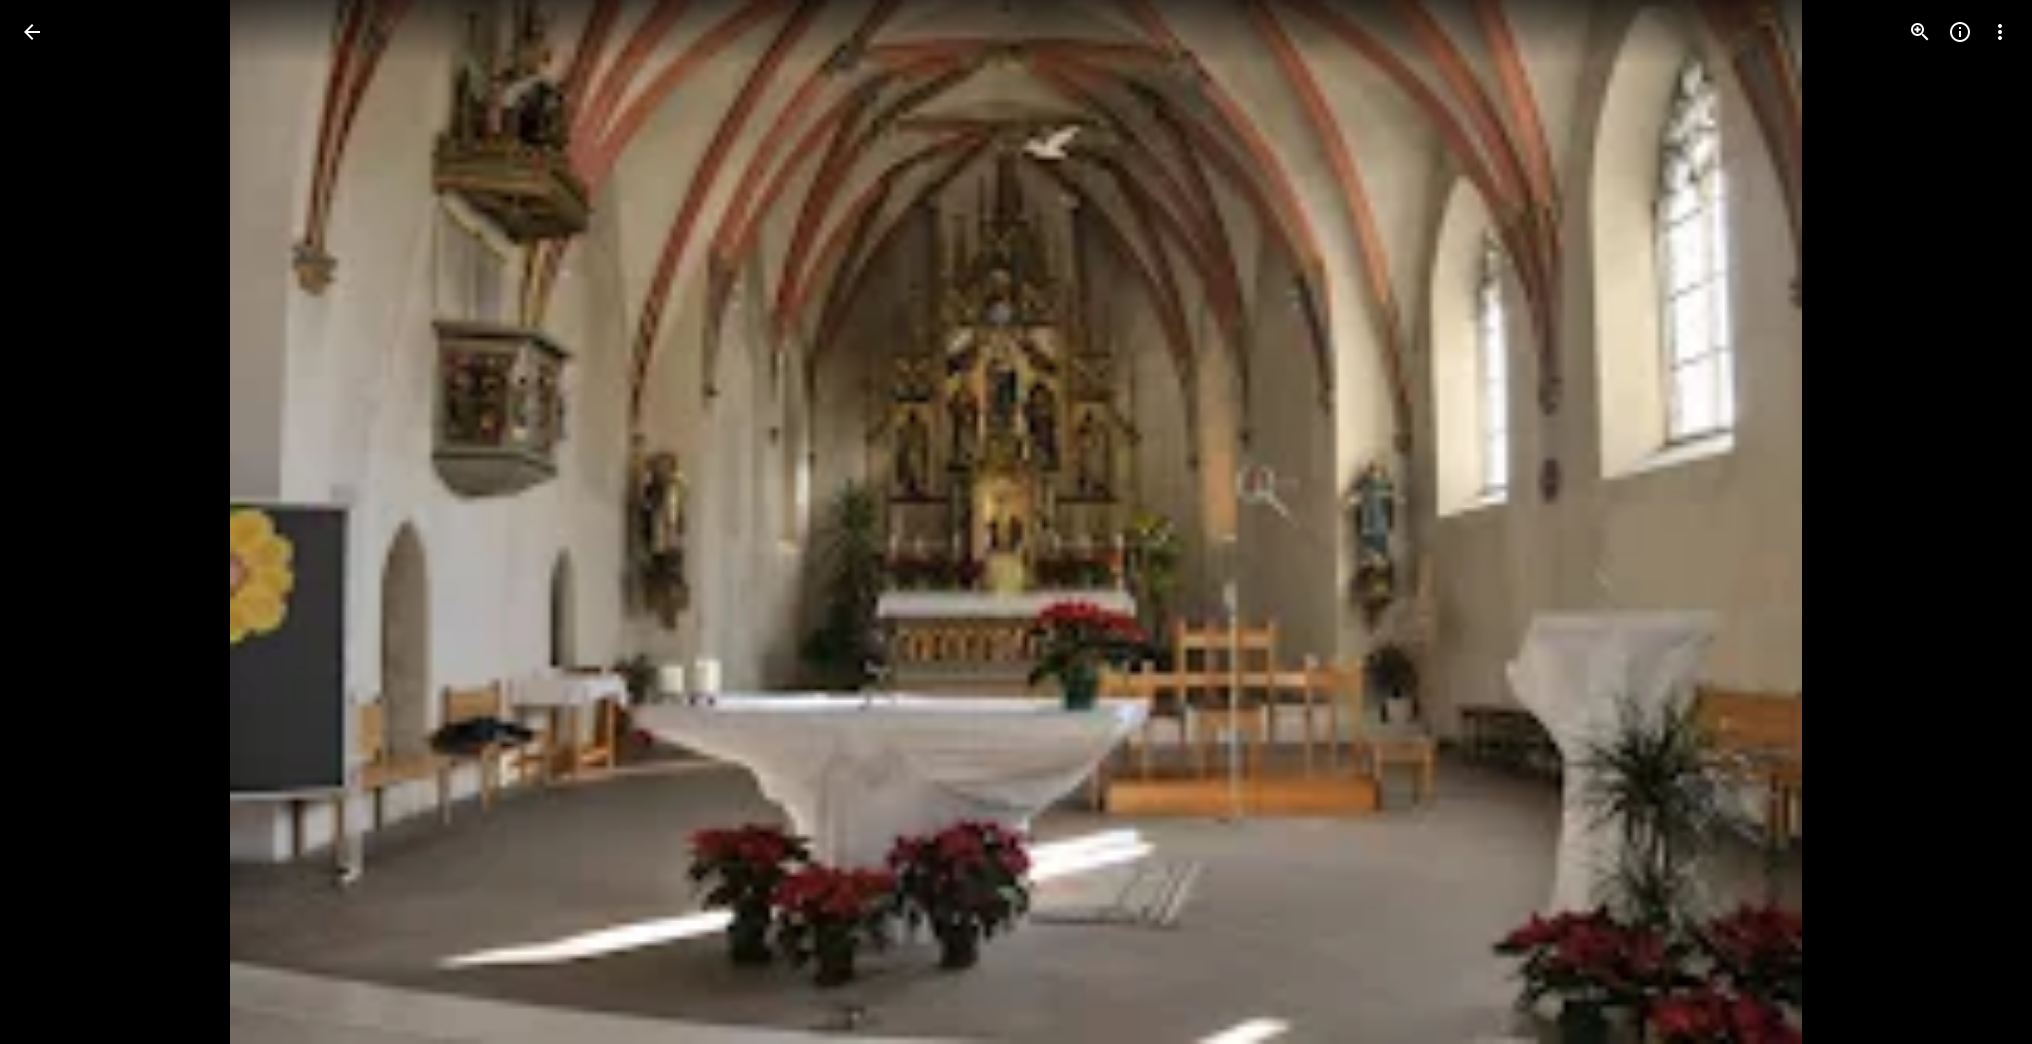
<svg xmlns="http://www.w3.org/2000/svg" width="2032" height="1044">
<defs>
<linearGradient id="g1" gradientUnits="userSpaceOnUse" x1="1016" y1="0" x2="1016" y2="64"><stop offset="0" stop-color="#000" stop-opacity="0.6"/><stop offset="1" stop-color="#000" stop-opacity="0"/></linearGradient>
</defs>
<rect width="100%" height="100%" fill="#000"/>
<image href="5.png" x="230" y="0" width="1572" height="1044"/>
<path fill="url(#g1)" d="M230 0h1572v62H230z"/>
<image href="1.png" x="24" y="24" width="16" height="16"/>
<image href="2.png" x="1911" y="23" width="18" height="18"/>
<image href="3.png" x="1950" y="22" width="20" height="20"/>
<image href="4.png" x="1998" y="24" width="4" height="16"/>
</svg>
